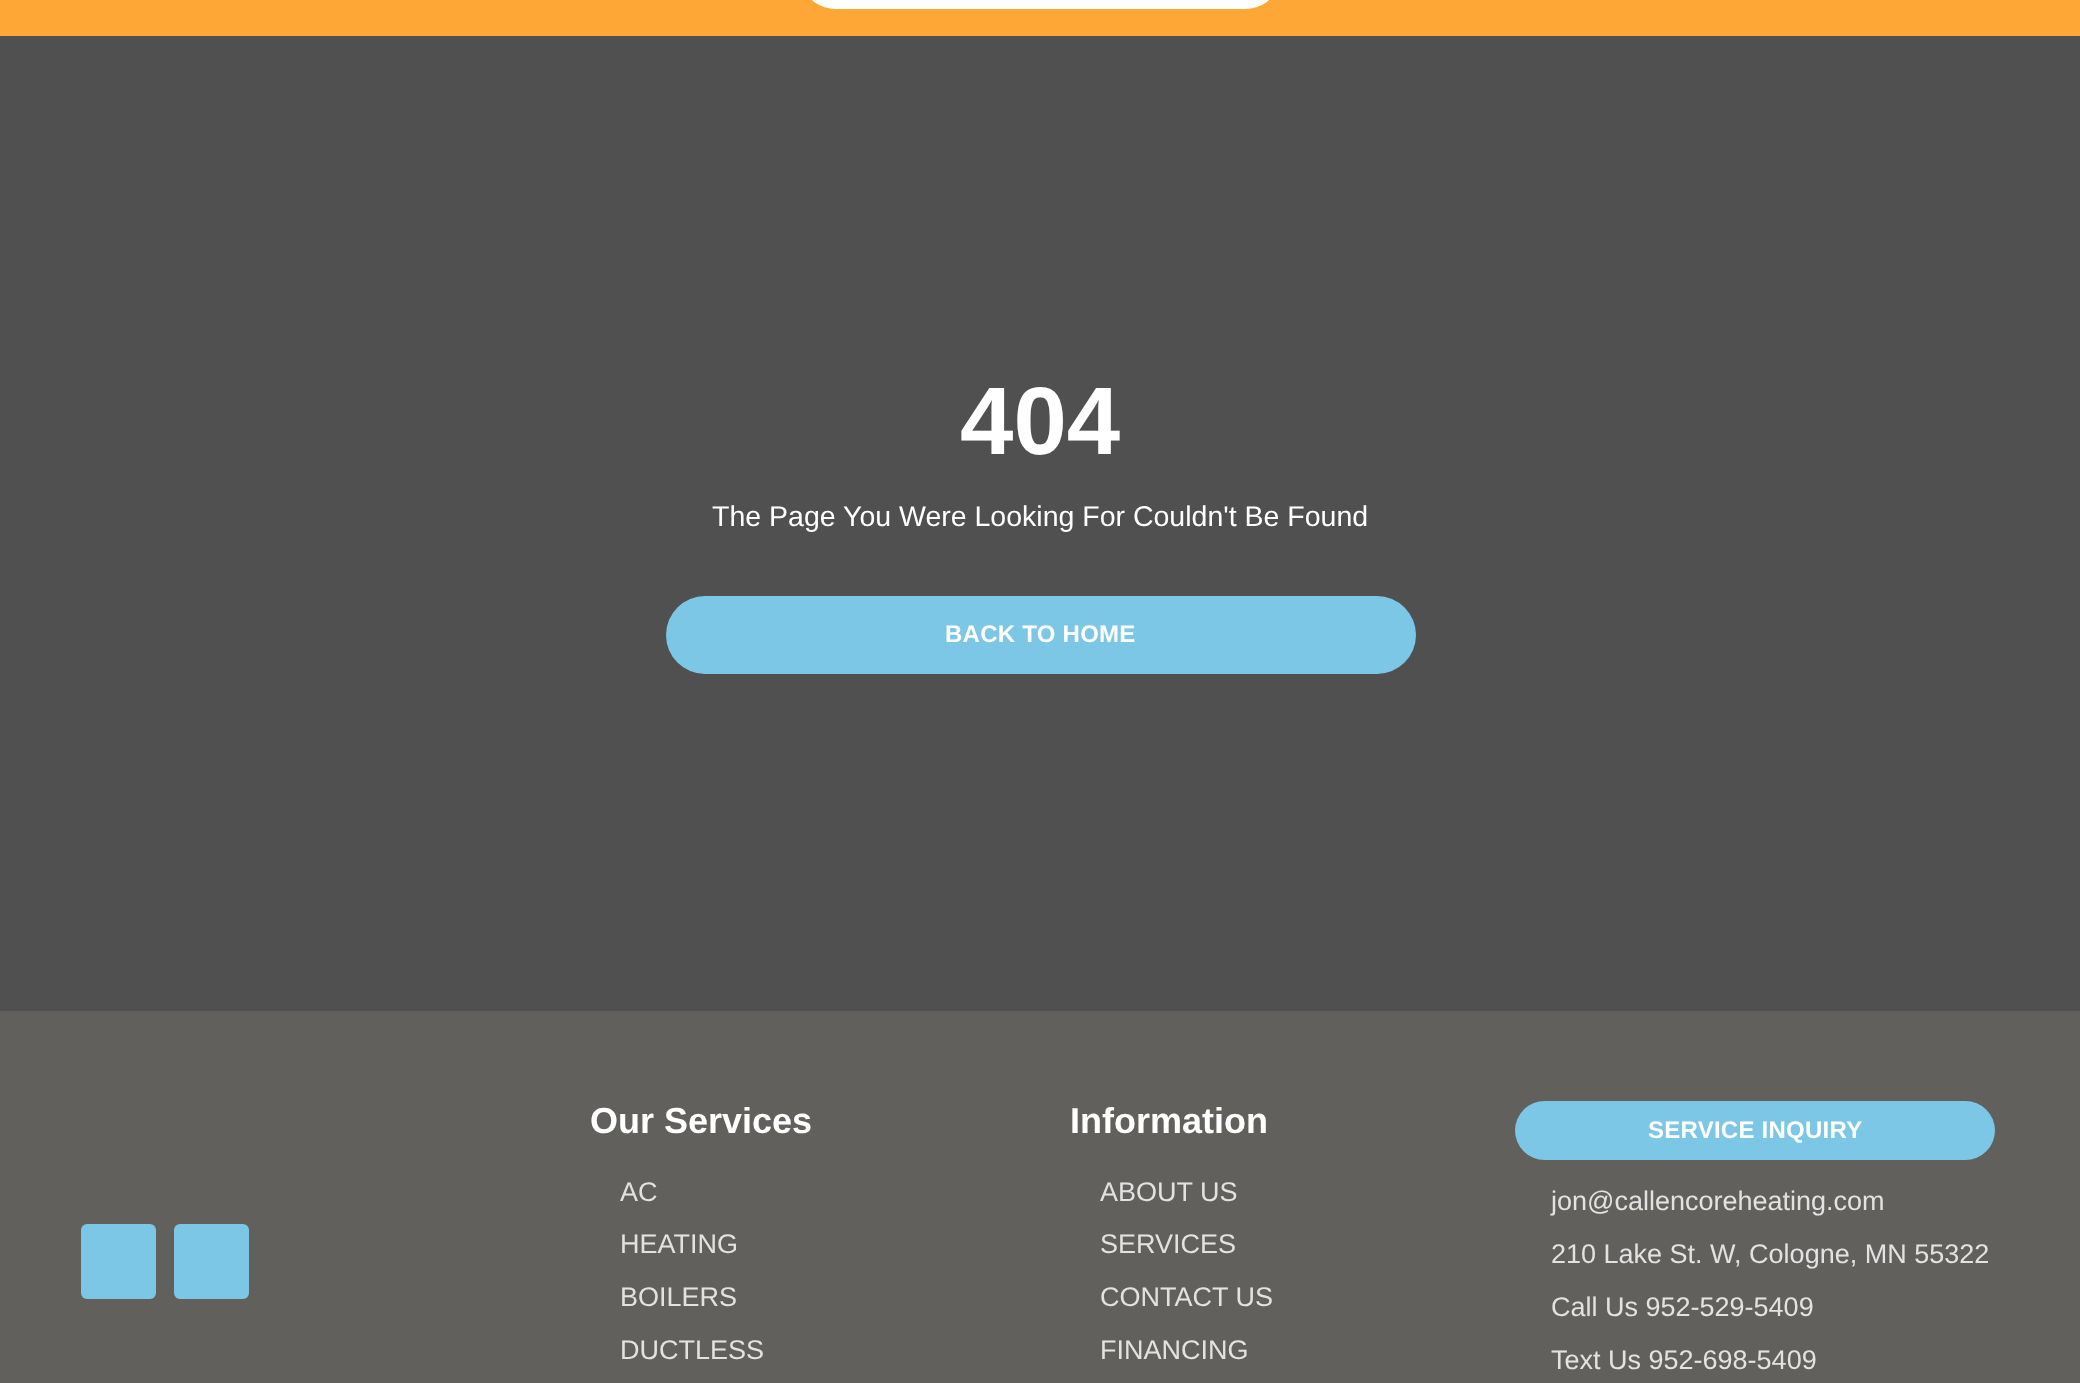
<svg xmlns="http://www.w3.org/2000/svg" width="2080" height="1383">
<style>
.a{font:bold 96px Liberation Sans;fill:#fff}
.b{font:28.5px Liberation Sans;fill:#fff}
.c{font:bold 24px Liberation Sans;letter-spacing:0.25px;fill:#fff}
.d{font:bold 36px Liberation Sans;fill:#fff}
.e{font:27px Liberation Sans;fill:#e3e2e2}
</style>
<rect width="100%" height="100%" fill="#ffa736"/>
<rect fill="#fff" stroke="#ffa736" stroke-width="3" x="805.5" y="-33.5" width="470" height="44" rx="30.5"/>
<path fill="#505050" d="M0 36h2080v975H0z"/>
<rect fill="#7cc6e6" x="666" y="596" width="750" height="78" rx="39"/>
<path fill="#61605d" d="M0 1011h2080v372H0z"/>
<rect fill="#7cc6e6" x="81" y="1224" width="75" height="75" rx="6"/>
<rect fill="#7cc6e6" x="174" y="1224" width="75" height="75" rx="6"/>
<rect fill="#7cc6e6" x="1515" y="1101" width="480" height="59" rx="29.5"/>
<text class="a" x="960" y="454">404</text>
<text class="b" x="712" y="526">The Page You Were Looking For Couldn't Be Found</text>
<text class="c" x="945" y="642">BACK TO HOME</text>
<text class="d" x="590" y="1133">Our Services</text>
<text class="e" x="620" y="1201">AC</text>
<text class="e" x="620" y="1253">HEATING</text>
<text class="e" x="620" y="1306">BOILERS</text>
<text class="e" x="620" y="1359">DUCTLESS</text>
<text class="d" x="1070" y="1133">Information</text>
<text class="e" x="1100" y="1201">ABOUT US</text>
<text class="e" x="1100" y="1253">SERVICES</text>
<text class="e" x="1100" y="1306">CONTACT US</text>
<text class="e" x="1100" y="1359">FINANCING</text>
<text class="c" x="1648" y="1138">SERVICE INQUIRY</text>
<text class="e" x="1551" y="1210">jon@callencoreheating.com</text>
<text class="e" x="1551" y="1263">210 Lake St. W, Cologne, MN 55322</text>
<text class="e" x="1551" y="1316">Call Us 952-529-5409</text>
<text class="e" x="1551" y="1369">Text Us 952-698-5409</text>
</svg>
